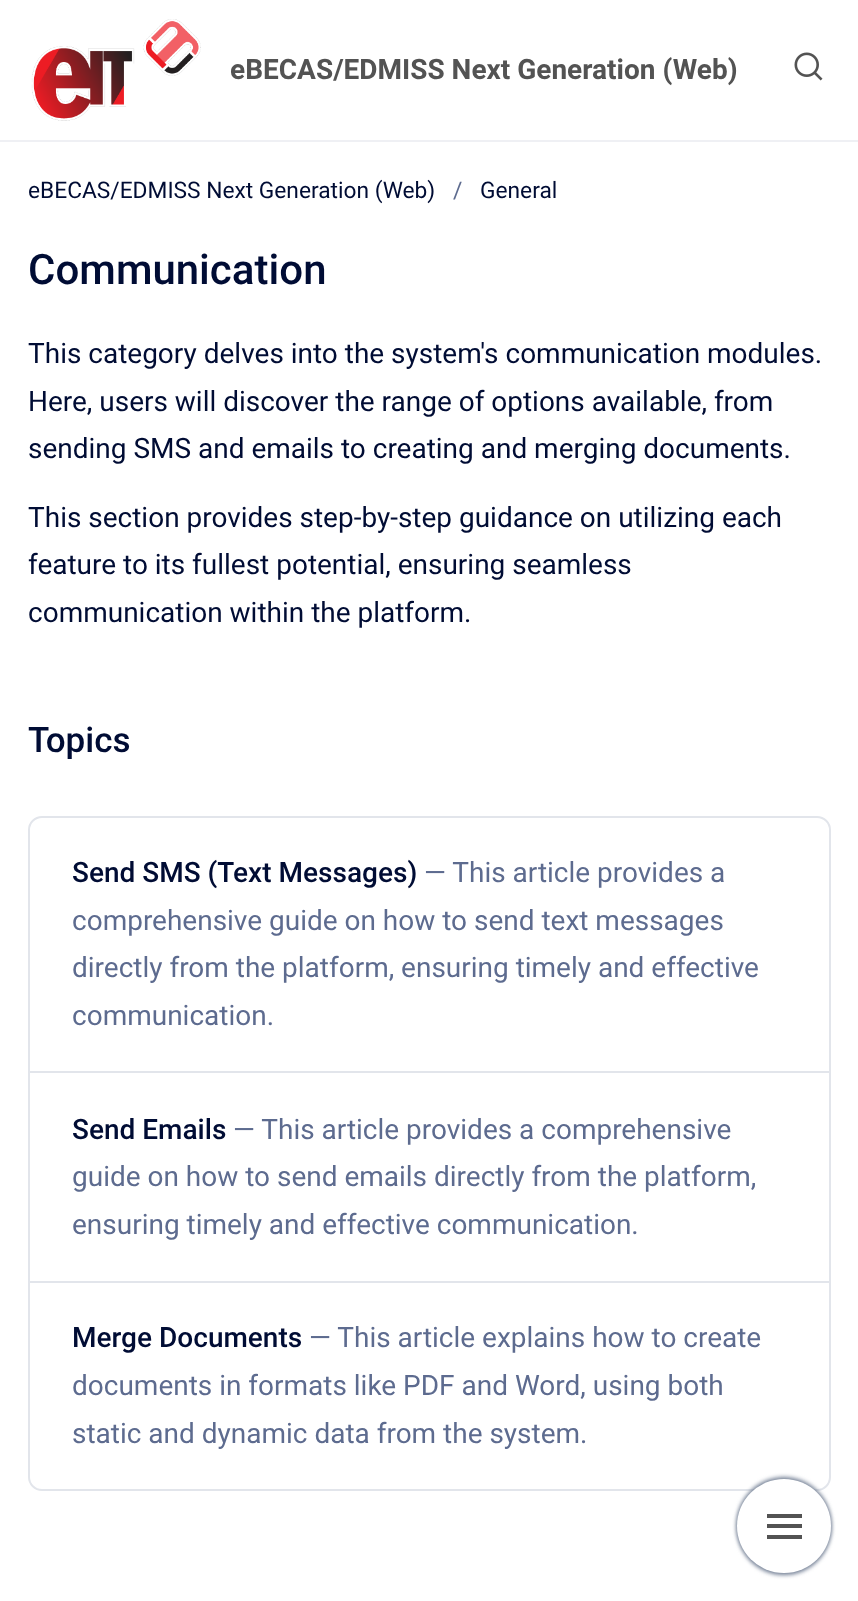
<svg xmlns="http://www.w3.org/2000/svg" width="858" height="1601">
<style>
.a{font:bold 28px Roboto;fill:#535353}
.b{font:22.75px Roboto;fill:#000c34}
.c{font:22.75px Roboto;fill:#5d6b8f}
.d{font:500 42px Roboto;fill:#000c34}
.e{font:28px Roboto;fill:#000c34}
.f{font:500 35px Roboto;fill:#000c34}
.g{font:500 28px Roboto;fill:#000c34}
.h{font:28px Roboto;fill:#5d6b8f}
</style>
<rect width="100%" height="100%" fill="#fff"/>
<path fill="#eff0f4" d="M0 140h858v2H0z"/>
<image href="1.png" x="31" y="19" width="170" height="102"/>
<image href="2.png" x="794" y="52" width="29" height="29"/>
<rect fill="none" stroke="#e2e5eb" stroke-width="2" x="29" y="817" width="801" height="673" rx="13"/>
<path fill="#e2e5eb" d="M30 1071h800v2H30z"/>
<path fill="#e2e5eb" d="M30 1281h800v2H30z"/>
<rect fill="#7a869a" filter="blur(2px)" x="737" y="1477" width="94" height="95" rx="47"/>
<rect fill="#7a869a" filter="blur(2px)" x="737" y="1481" width="94" height="94" rx="47"/>
<circle fill="#fff" cx="784" cy="1526" r="47"/>
<path fill="#535353" d="M767 1514h35v4H767z"/>
<path fill="#535353" d="M767 1524h35v4H767z"/>
<path fill="#535353" d="M767 1535h35v4H767z"/>
<text class="a" x="230" y="79">eBECAS/EDMISS Next Generation (Web)</text>
<text class="b" x="28" y="198">eBECAS/EDMISS Next Generation (Web)</text>
<text class="c" x="453" y="198">/</text>
<text class="b" x="480" y="198">General</text>
<text class="d" x="28" y="284">Communication</text>
<text class="e" x="28" y="363">This category delves into the system's communication modules.</text>
<text class="e" x="28" y="411">Here, users will discover the range of options available, from</text>
<text class="e" x="28" y="458">sending SMS and emails to creating and merging documents.</text>
<text class="e" x="28" y="527">This section provides step-by-step guidance on utilizing each</text>
<text class="e" x="28" y="574">feature to its fullest potential, ensuring seamless</text>
<text class="e" x="28" y="622">communication within the platform.</text>
<text class="f" x="28" y="752">Topics</text>
<text class="g" x="72" y="882">Send SMS (Text Messages)</text>
<text class="h" x="424" y="882">— This article provides a</text>
<text class="h" x="72" y="930">comprehensive guide on how to send text messages</text>
<text class="h" x="72" y="977">directly from the platform, ensuring timely and effective</text>
<text class="h" x="72" y="1025">communication.</text>
<text class="g" x="72" y="1139">Send Emails</text>
<text class="h" x="233" y="1139">— This article provides a comprehensive</text>
<text class="h" x="72" y="1186">guide on how to send emails directly from the platform,</text>
<text class="h" x="72" y="1234">ensuring timely and effective communication.</text>
<text class="g" x="72" y="1347">Merge Documents</text>
<text class="h" x="309" y="1347">— This article explains how to create</text>
<text class="h" x="72" y="1395">documents in formats like PDF and Word, using both</text>
<text class="h" x="72" y="1443">static and dynamic data from the system.</text>
</svg>
